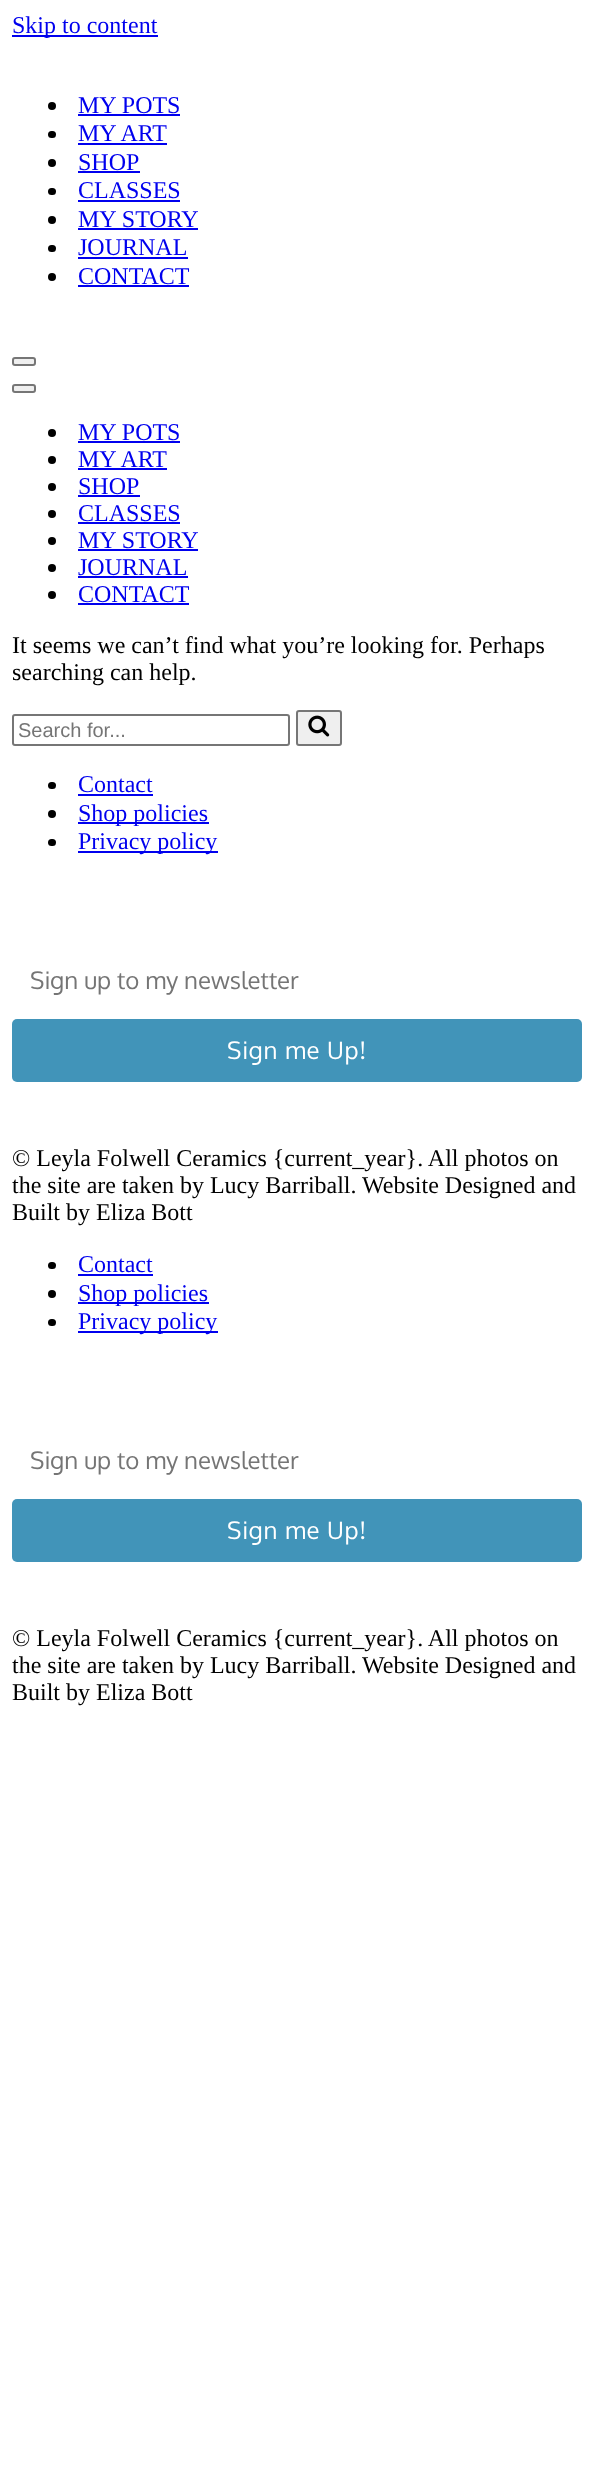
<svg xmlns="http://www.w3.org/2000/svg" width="594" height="2466">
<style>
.a{font:24px Liberation Serif;fill:#00e}
.b{font:24px Liberation Serif;fill:#000}
.c{font:20px Liberation Sans;fill:#757575}
.d{font:24px Oxygen;fill:#757575}
.e{font:24px Oxygen;letter-spacing:0.75px;fill:#fff}
</style>
<rect width="100%" height="100%" fill="#fff"/>
<path fill="#00e" d="M12 35h146v2H12z"/>
<circle fill="#000" cx="52" cy="106" r="4"/>
<path fill="#00e" d="M78 114h102v2H78z"/>
<rect fill="#000" x="48" y="131" width="8" height="7" rx="3.5"/>
<path fill="#00e" d="M78 143h89v2H78z"/>
<circle fill="#000" cx="52" cy="163" r="4"/>
<path fill="#00e" d="M78 171h62v2H78z"/>
<rect fill="#000" x="48" y="188" width="8" height="7" rx="3.5"/>
<path fill="#00e" d="M78 200h102v2H78z"/>
<circle fill="#000" cx="52" cy="220" r="4"/>
<path fill="#00e" d="M78 228h120v2H78z"/>
<rect fill="#000" x="48" y="245" width="8" height="7" rx="3.5"/>
<path fill="#00e" d="M78 257h110v2H78z"/>
<circle fill="#000" cx="52" cy="277" r="4"/>
<path fill="#00e" d="M78 285h111v2H78z"/>
<rect fill="#efefef" stroke="#767676" stroke-width="2" x="13" y="358" width="22" height="7" rx="2"/>
<rect fill="#efefef" stroke="#767676" stroke-width="2" x="13" y="385" width="22" height="7" rx="2"/>
<circle fill="#000" cx="52" cy="433" r="4"/>
<path fill="#00e" d="M78 441h102v2H78z"/>
<circle fill="#000" cx="52" cy="460" r="4"/>
<path fill="#00e" d="M78 468h89v2H78z"/>
<circle fill="#000" cx="52" cy="487" r="4"/>
<path fill="#00e" d="M78 495h62v2H78z"/>
<circle fill="#000" cx="52" cy="514" r="4"/>
<path fill="#00e" d="M78 522h102v2H78z"/>
<circle fill="#000" cx="52" cy="541" r="4"/>
<path fill="#00e" d="M78 549h120v2H78z"/>
<circle fill="#000" cx="52" cy="568" r="4"/>
<path fill="#00e" d="M78 576h110v2H78z"/>
<circle fill="#000" cx="52" cy="595" r="4"/>
<path fill="#00e" d="M78 603h111v2H78z"/>
<rect fill="none" stroke="#767676" stroke-width="2" x="13" y="715" width="276" height="30" rx="2"/>
<rect fill="#efefef" stroke="#767676" stroke-width="2" x="297" y="711" width="44" height="34" rx="2"/>
<image href="1.png" x="308" y="715" width="22" height="22"/>
<rect fill="#000" x="48" y="782" width="8" height="7" rx="3.5"/>
<path fill="#00e" d="M78 794h75v2H78z"/>
<circle fill="#000" cx="52" cy="814" r="4"/>
<path fill="#00e" d="M78 822h131v2H78z"/>
<rect fill="#000" x="48" y="839" width="8" height="7" rx="3.5"/>
<path fill="#00e" d="M78 851h140v2H78z"/>
<rect fill="#4194b9" x="12" y="1019" width="570" height="63" rx="5"/>
<rect fill="#000" x="48" y="1262" width="8" height="7" rx="3.5"/>
<path fill="#00e" d="M78 1274h75v2H78z"/>
<circle fill="#000" cx="52" cy="1294" r="4"/>
<path fill="#00e" d="M78 1302h131v2H78z"/>
<rect fill="#000" x="48" y="1319" width="8" height="7" rx="3.5"/>
<path fill="#00e" d="M78 1331h140v2H78z"/>
<rect fill="#4194b9" x="12" y="1499" width="570" height="63" rx="5"/>
<text class="a" x="12" y="33">Skip to content</text>
<text class="a" x="78" y="113">MY POTS</text>
<text class="a" x="78" y="141">MY ART</text>
<text class="a" x="78" y="170">SHOP</text>
<text class="a" x="78" y="198">CLASSES</text>
<text class="a" x="78" y="227">MY STORY</text>
<text class="a" x="78" y="255">JOURNAL</text>
<text class="a" x="78" y="284">CONTACT</text>
<text class="a" x="78" y="440">MY POTS</text>
<text class="a" x="78" y="467">MY ART</text>
<text class="a" x="78" y="494">SHOP</text>
<text class="a" x="78" y="521">CLASSES</text>
<text class="a" x="78" y="548">MY STORY</text>
<text class="a" x="78" y="575">JOURNAL</text>
<text class="a" x="78" y="602">CONTACT</text>
<text class="b" x="12" y="653">It seems we can’t find what you’re looking for. Perhaps</text>
<text class="b" x="12" y="680">searching can help.</text>
<text class="c" x="18" y="737">Search for...</text>
<text class="a" x="78" y="792">Contact</text>
<text class="a" x="78" y="821">Shop policies</text>
<text class="a" x="78" y="849">Privacy policy</text>
<text class="d" x="30" y="989">Sign up to my newsletter</text>
<text class="e" x="227" y="1059">Sign me Up!</text>
<text class="b" x="12" y="1166">© Leyla Folwell Ceramics {current_year}. All photos on</text>
<text class="b" x="12" y="1193">the site are taken by Lucy Barriball. Website Designed and</text>
<text class="b" x="12" y="1220">Built by Eliza Bott</text>
<text class="a" x="78" y="1272">Contact</text>
<text class="a" x="78" y="1301">Shop policies</text>
<text class="a" x="78" y="1329">Privacy policy</text>
<text class="d" x="30" y="1469">Sign up to my newsletter</text>
<text class="e" x="227" y="1539">Sign me Up!</text>
<text class="b" x="12" y="1646">© Leyla Folwell Ceramics {current_year}. All photos on</text>
<text class="b" x="12" y="1673">the site are taken by Lucy Barriball. Website Designed and</text>
<text class="b" x="12" y="1700">Built by Eliza Bott</text>
</svg>
